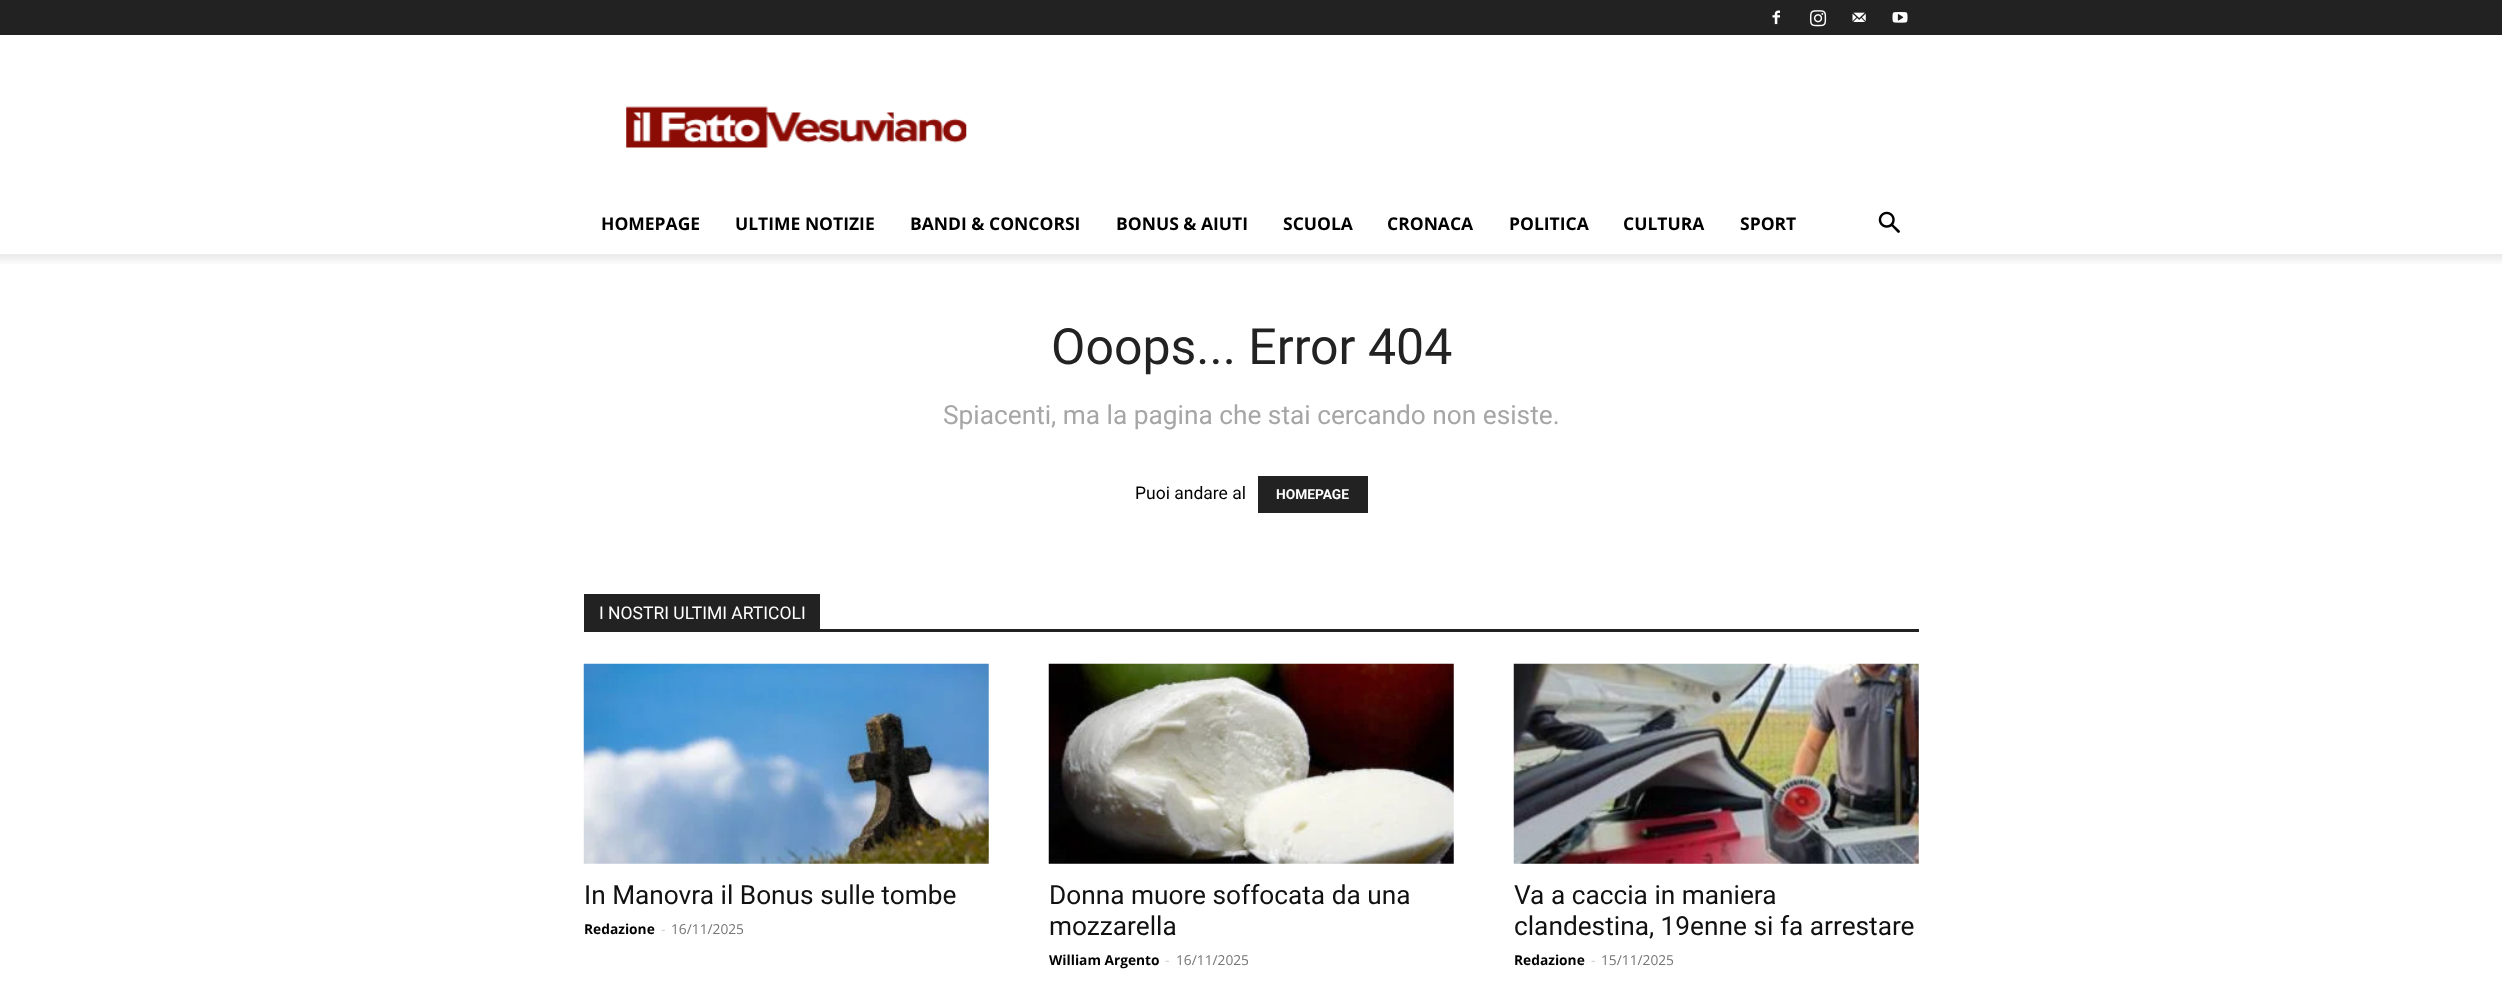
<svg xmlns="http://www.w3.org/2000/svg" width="2502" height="998">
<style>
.a{font:bold 17.5px Open Sans;fill:#000}
.b{font:50px Roboto;fill:#222}
.c{font:26.25px Roboto;fill:#a6a6a6}
.d{font:17.5px Roboto;fill:#000}
.e{font:bold 13.75px Roboto;fill:#fff}
.f{font:17.5px Roboto;fill:#fff}
.g{font:26.25px Roboto;fill:#111}
.h{font:bold 13.75px Open Sans;fill:#000}
.i{font:13.75px Open Sans;fill:#ccc}
.j{font:13.75px Open Sans;fill:#767676}
</style>
<rect width="100%" height="100%" fill="#fff"/>
<path fill="#222" d="M0 0h2502v35H0z"/>
<image href="1.png" x="1772" y="10" width="8" height="15"/>
<image href="2.png" x="1810" y="10" width="17" height="17"/>
<image href="3.png" x="1852" y="12" width="14" height="10"/>
<image href="4.png" x="1892" y="12" width="16" height="11"/>
<image href="5.png" x="626" y="106" width="341" height="42"/>
<image href="6.png" x="1878" y="211" width="22" height="22"/>
<image href="7.png" x="0" y="254" width="2502" height="10"/>
<path fill="#222" d="M1258 476h110v37H1258z"/>
<path fill="#222" d="M584 629h1335v3H584z"/>
<path fill="#222" d="M584 594h236v35H584z"/>
<image href="8.png" x="583" y="663" width="406" height="201"/>
<image href="9.png" x="1048" y="663" width="406" height="201"/>
<image href="10.png" x="1513" y="663" width="406" height="201"/>
<text class="a" x="601" y="230">HOMEPAGE</text>
<text class="a" x="735" y="230">ULTIME NOTIZIE</text>
<text class="a" x="910" y="230">BANDI &amp; CONCORSI</text>
<text class="a" x="1116" y="230">BONUS &amp; AIUTI</text>
<text class="a" x="1283" y="230">SCUOLA</text>
<text class="a" x="1387" y="230">CRONACA</text>
<text class="a" x="1509" y="230">POLITICA</text>
<text class="a" x="1623" y="230">CULTURA</text>
<text class="a" x="1740" y="230">SPORT</text>
<text class="b" x="1051" y="364">Ooops... Error 404</text>
<text class="c" x="943" y="424">Spiacenti, ma la pagina che stai cercando non esiste.</text>
<text class="d" x="1135" y="499">Puoi andare al</text>
<text class="e" x="1276" y="499">HOMEPAGE</text>
<text class="f" x="599" y="619">I NOSTRI ULTIMI ARTICOLI</text>
<text class="g" x="584" y="904">In Manovra il Bonus sulle tombe</text>
<text class="h" x="584" y="934">Redazione</text>
<text class="i" x="661" y="934">-</text>
<text class="j" x="671" y="934">16/11/2025</text>
<text class="g" x="1049" y="904">Donna muore soffocata da una</text>
<text class="g" x="1049" y="935">mozzarella</text>
<text class="h" x="1049" y="965">William Argento</text>
<text class="i" x="1165" y="965">-</text>
<text class="j" x="1176" y="965">16/11/2025</text>
<text class="g" x="1514" y="904">Va a caccia in maniera</text>
<text class="g" x="1514" y="935">clandestina, 19enne si fa arrestare</text>
<text class="h" x="1514" y="965">Redazione</text>
<text class="i" x="1591" y="965">-</text>
<text class="j" x="1601" y="965">15/11/2025</text>
</svg>
